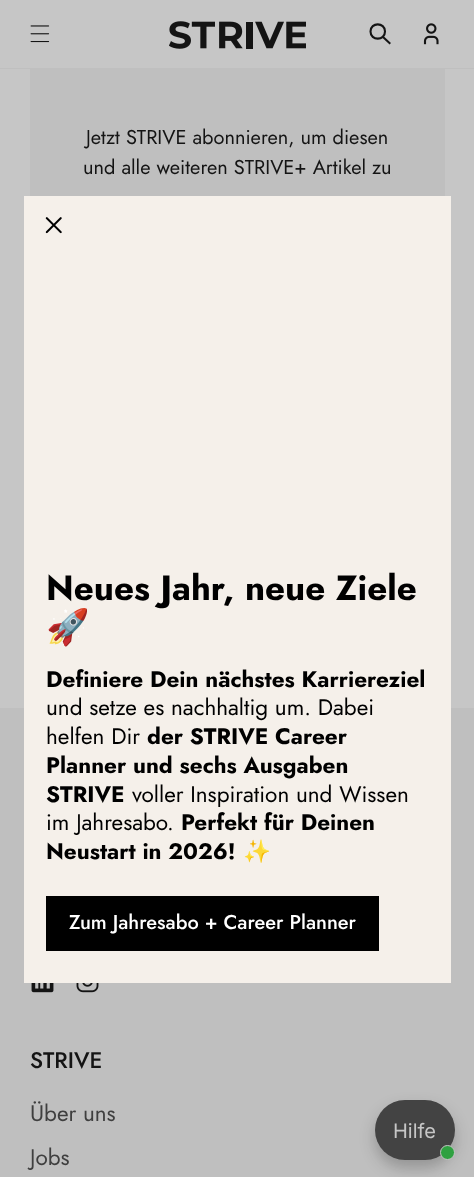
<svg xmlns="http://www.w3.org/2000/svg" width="474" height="1177">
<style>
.a{font:20px Jost;fill:#141414}
.b{font:bold 35px Jost;fill:#000}
.c{font:bold 35px Noto Color Emoji;fill:#000}
.d{font:bold 22.5px Jost;fill:#000}
.e{font:22.5px Jost;fill:#000}
.f{font:bold 22.5px Noto Color Emoji;fill:#000}
.g{font:500 20px Jost;fill:#fff}
.h{font:500 22.5px Jost;fill:#141414}
.i{font:22.5px Jost;fill:#3f3f3f}
.j{font:20px Inter;fill:#c6c6c6}
</style>
<rect width="100%" height="100%" fill="#c6c6c6"/>
<path fill="#bfbfbf" d="M0 68h474v1H0z"/>
<image href="1.png" x="30" y="25" width="20" height="18"/>
<image href="2.png" x="169" y="21" width="137" height="28"/>
<path fill="none" stroke="#141414" stroke-width="2.1" stroke-linecap="square" d="M389.5 43l-6.5-6m-12.5-5.5c0 9.5 14.5 9.5 14.5 0c0-9.5-14.5-9.5-14.5 0z"/>
<image href="3.png" x="423" y="23" width="16" height="22"/>
<path fill="#bfbfbf" d="M30 69h415v127H30z"/>
<path fill="#bfbfbf" d="M0 708h474v469H0z"/>
<path fill="#f5f0ea" d="M24 196h427v787H24z"/>
<image href="4.png" x="45" y="217" width="17" height="17"/>
<path fill="#000" d="M46 896h333v55H46z"/>
<image href="5.png" x="31" y="983" width="23" height="10"/>
<image href="6.png" x="76" y="983" width="23" height="10"/>
<rect fill="#14141440" filter="blur(7.5px)" x="375" y="1108" width="80" height="60" rx="30"/>
<rect fill="#434343" x="375" y="1100" width="80" height="60" rx="30"/>
<circle fill="#2fa141" stroke="#c6c6c6" cx="447.5" cy="1152.5" r="7"/>
<text class="a" x="86" y="144">Jetzt STRIVE abonnieren, um diesen</text>
<text class="a" x="83" y="174">und alle weiteren STRIVE+ Artikel zu</text>
<text class="b" x="46" y="600">Neues Jahr, neue Ziele</text>
<text class="c" x="46" y="639">🚀</text>
<text class="d" x="46" y="687">Definiere Dein nächstes Karriereziel</text>
<text class="e" x="46" y="715">und setze es nachhaltig um. Dabei</text>
<text class="e" x="46" y="744">helfen Dir</text>
<text class="d" x="147" y="744">der STRIVE Career</text>
<text class="d" x="46" y="773">Planner und sechs Ausgaben</text>
<text class="d" x="46" y="802">STRIVE</text>
<text class="e" x="132" y="802">voller Inspiration und Wissen</text>
<text class="e" x="46" y="830">im Jahresabo.</text>
<text class="d" x="181" y="830">Perfekt für Deinen</text>
<text class="d" x="46" y="859">Neustart in 2026!</text>
<text class="f" x="243" y="859">✨</text>
<text class="g" x="69" y="929">Zum Jahresabo + Career Planner</text>
<text class="h" x="30" y="1068">STRIVE</text>
<text class="i" x="30" y="1121">Über uns</text>
<text class="i" x="30" y="1165">Jobs</text>
<text class="j" x="393" y="1138">Hilfe</text>
</svg>
